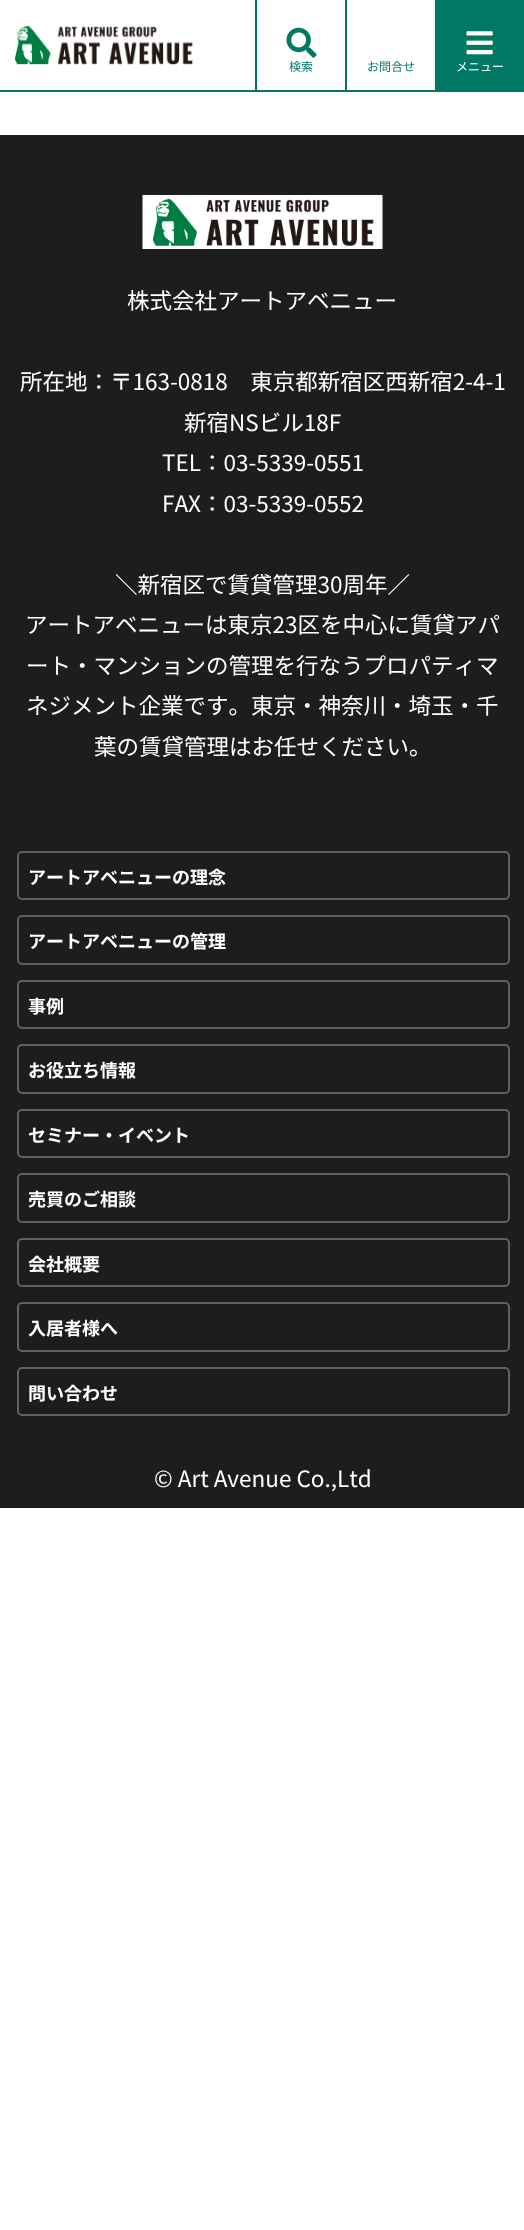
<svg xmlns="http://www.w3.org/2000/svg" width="524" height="2230">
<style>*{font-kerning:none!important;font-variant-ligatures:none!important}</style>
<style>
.a{font:12px Noto Sans JP;fill:#007864}
.b{font:12px Noto Sans JP;fill:#fff}
.c{font:22.5px Noto Sans JP;fill:#fff}
.d{font:bold 18px Noto Sans JP;fill:#fff}
</style>
<rect width="100%" height="100%" fill="#fff"/>
<path fill="#007864" d="M0 90h524v2H0z"/>
<image href="1.png" x="15" y="25" width="178" height="40"/>
<path fill="#007864" d="M255 0h2v90H255z"/>
<image href="2.png" x="286" y="27" width="31" height="31"/>
<path fill="#007864" d="M345 0h2v90H345z"/>
<path fill="#007864" d="M435 0h89v90H435z"/>
<image href="3.png" x="466" y="31" width="27" height="24"/>
<path fill="#1d1d1d" d="M0 135h524v1373H0z"/>
<image href="4.png" x="142" y="195" width="241" height="54"/>
<rect fill="none" stroke="#616161" stroke-width="2" x="18" y="852" width="491" height="47" rx="4"/>
<rect fill="none" stroke="#616161" stroke-width="2" x="18" y="916" width="491" height="48" rx="4"/>
<rect fill="none" stroke="#616161" stroke-width="2" x="18" y="981" width="491" height="47" rx="4"/>
<rect fill="none" stroke="#616161" stroke-width="2" x="18" y="1045" width="491" height="48" rx="4"/>
<rect fill="none" stroke="#616161" stroke-width="2" x="18" y="1110" width="491" height="47" rx="4"/>
<rect fill="none" stroke="#616161" stroke-width="2" x="18" y="1174" width="491" height="48" rx="4"/>
<rect fill="none" stroke="#616161" stroke-width="2" x="18" y="1239" width="491" height="47" rx="4"/>
<rect fill="none" stroke="#616161" stroke-width="2" x="18" y="1303" width="491" height="48" rx="4"/>
<rect fill="none" stroke="#616161" stroke-width="2" x="18" y="1368" width="491" height="47" rx="4"/>
<text class="a" x="289" y="71">検索</text>
<text class="a" x="367" y="71">お問合せ</text>
<text class="b" x="456" y="71">メニュー</text>
<text class="c" x="127" y="309">株式会社アートアベニュー</text>
<text class="c" x="20" y="390">所在地：〒163-0818　東京都新宿区西新宿2-4-1</text>
<text class="c" x="184" y="431">新宿NSビル18F</text>
<text class="c" x="162" y="471">TEL：03-5339-0551</text>
<text class="c" x="162" y="512">FAX：03-5339-0552</text>
<text class="c" x="115" y="593">＼新宿区で賃貸管理30周年／</text>
<text class="c" x="25" y="633">アートアベニューは東京23区を中心に賃貸アパ</text>
<text class="c" x="26" y="674">ート・マンションの管理を行なうプロパティマ</text>
<text class="c" x="26" y="714">ネジメント企業です。東京・神奈川・埼玉・千</text>
<text class="c" x="94" y="755">葉の賃貸管理はお任せください。</text>
<text class="d" x="28" y="884">アートアベニューの理念</text>
<text class="d" x="28" y="948">アートアベニューの管理</text>
<text class="d" x="28" y="1013">事例</text>
<text class="d" x="28" y="1077">お役立ち情報</text>
<text class="d" x="28" y="1142">セミナー・イベント</text>
<text class="d" x="28" y="1206">売買のご相談</text>
<text class="d" x="28" y="1271">会社概要</text>
<text class="d" x="28" y="1335">入居者様へ</text>
<text class="d" x="28" y="1400">問い合わせ</text>
<text class="c" x="154" y="1487">© Art Avenue Co.,Ltd</text>
</svg>
